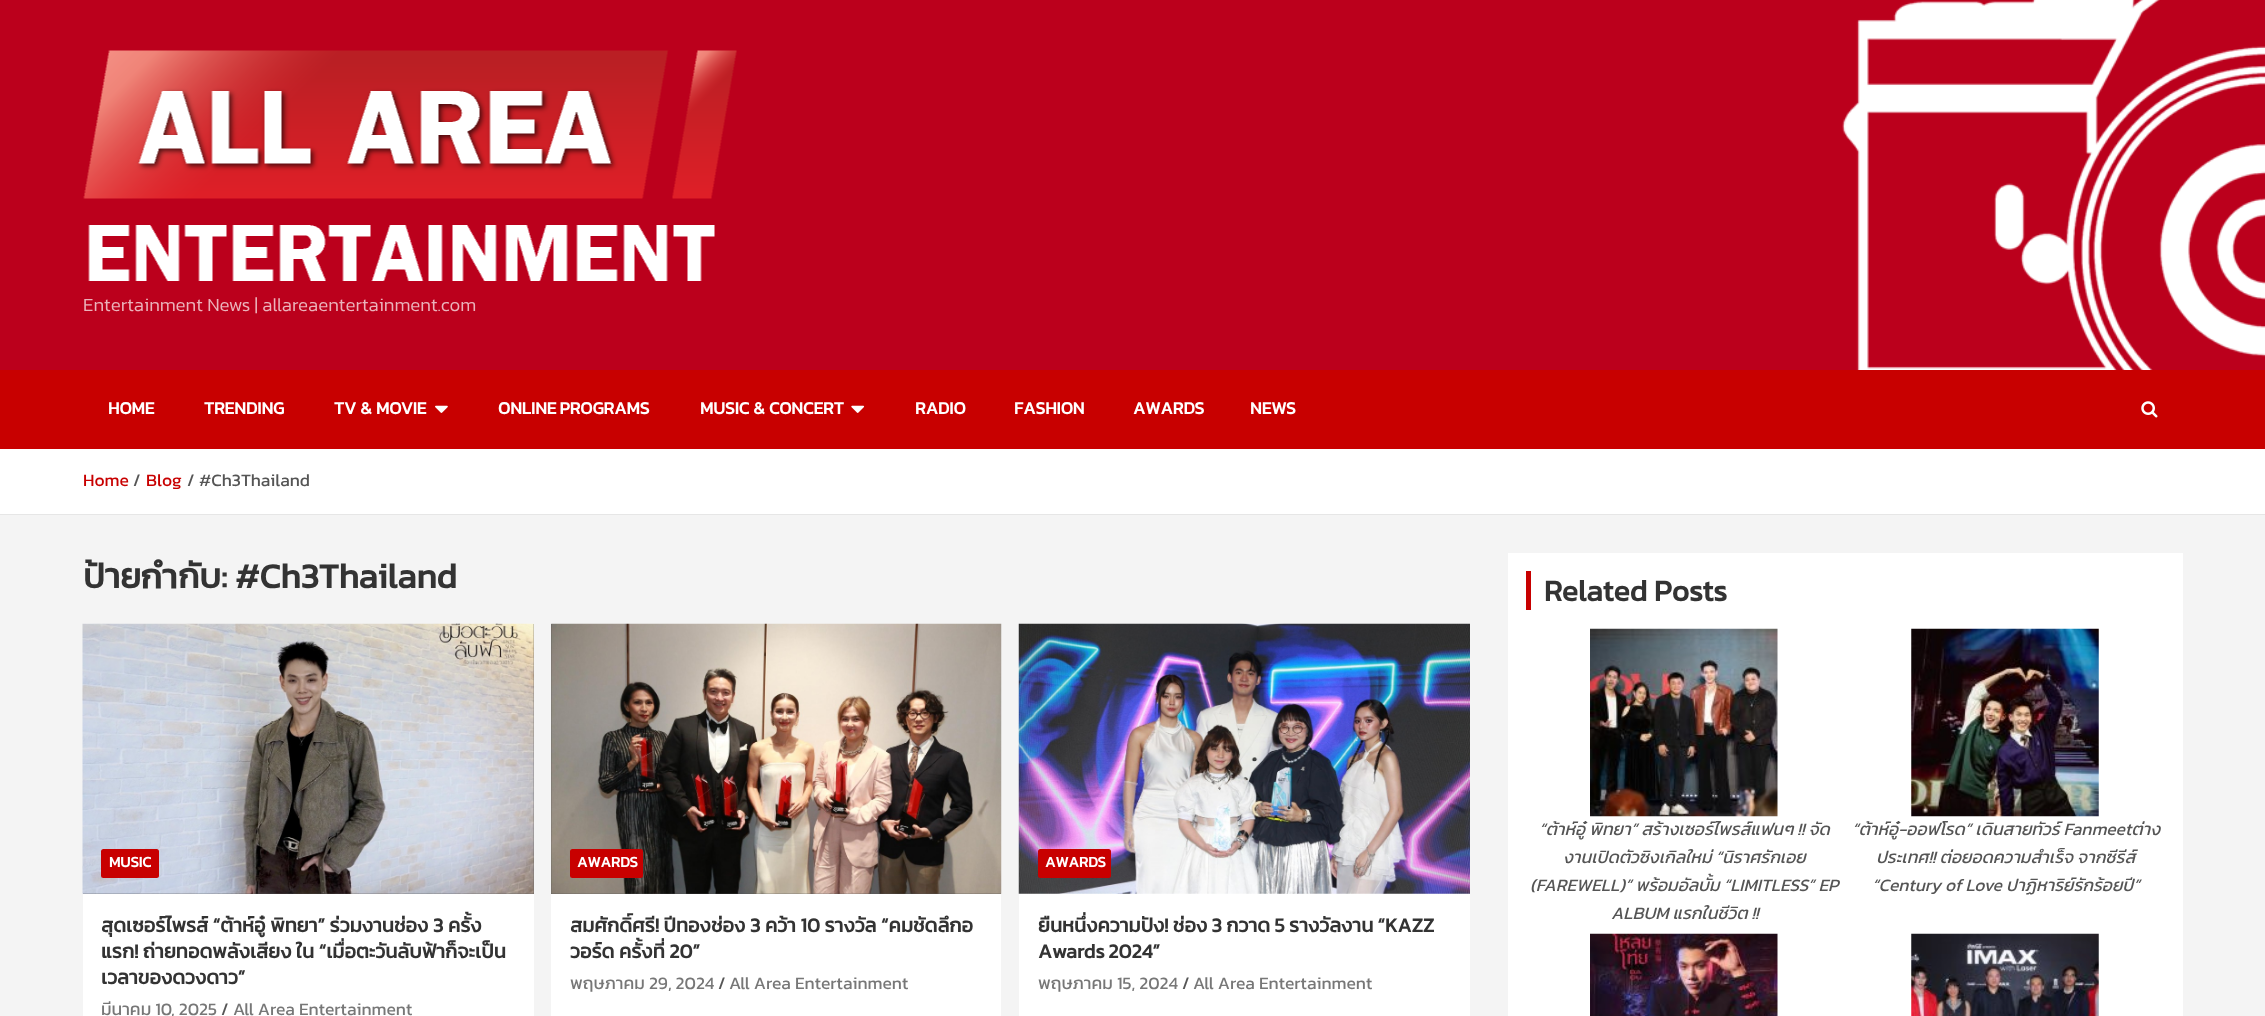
<svg xmlns="http://www.w3.org/2000/svg" width="2265" height="1016">
<style>
.a{font:300 18.75px Kanit;fill:#ebb3bb}
.b{font:bold 17.5px Kanit;fill:#fff}
.c{font:17.5px Kanit;fill:#c80000}
.d{font:17.5px Kanit;fill:#555}
.e{font:bold 35px Kanit;fill:#333}
.f{font:bold 15px Kanit;fill:#fff}
.g{font:bold 20px Kanit;fill:#333}
.h{font:17.5px Kanit;fill:#777}
.i{font:bold 30px Kanit;fill:#333}
.j{font:italic 17.5px Kanit;fill:#555}
</style>
<defs>
<clipPath id="clip1"><path d="M83 553h1387v46H83z"/></clipPath>
</defs>
<rect width="100%" height="100%" fill="#f4f4f4"/>
<image href="1.png" x="0" y="0" width="2265" height="370"/>
<image href="2.png" x="83" y="50" width="654" height="231"/>
<path fill="#c80000" d="M0 370h2265v79H0z"/>
<image href="3.png" x="435" y="405" width="13" height="8"/>
<image href="4.png" x="851" y="405" width="14" height="8"/>
<image href="5.png" x="2141" y="401" width="17" height="17"/>
<path fill="#fff" d="M0 449h2265v65H0z"/>
<path fill="#e6e6e6" d="M0 514h2265v1H0z"/>
<path fill="#fff" d="M83 894h451v122H83z"/>
<path fill="#555" d="M83 624h451v270H83z"/>
<image href="6.png" x="82" y="623" width="452" height="271"/>
<rect fill="#c80000" x="101" y="849" width="58" height="29" rx="2.5"/>
<path fill="#fff" d="M551 894h450v122H551z"/>
<path fill="#555" d="M551 624h450v270H551z"/>
<image href="7.png" x="551" y="623" width="451" height="271"/>
<rect fill="#c80000" x="570" y="849" width="73" height="29" rx="2.5"/>
<path fill="#fff" d="M1019 893h451v123H1019z"/>
<image href="8.png" x="1018" y="623" width="452" height="271"/>
<rect fill="#c80000" x="1038" y="849" width="73" height="29" rx="2.5"/>
<path fill="#fff" d="M1508 553h675v463H1508z"/>
<path fill="#c80000" d="M1526 571h5v39H1526z"/>
<image href="9.png" x="1590" y="628" width="188" height="189"/>
<image href="10.png" x="1911" y="628" width="188" height="189"/>
<image href="11.png" x="1590" y="933" width="188" height="83"/>
<image href="12.png" x="1911" y="933" width="188" height="83"/>
<text class="a" x="83" y="311">Entertainment News | allareaentertainment.com</text>
<text class="b" x="108" y="414">HOME</text>
<text class="b" x="204" y="414">TRENDING</text>
<text class="b" x="334" y="414">TV &amp; MOVIE</text>
<text class="b" x="498" y="414" word-spacing="-1">ONLINE PROGRAMS</text>
<text class="b" x="700" y="414">MUSIC &amp; CONCERT</text>
<text class="b" x="915" y="414">RADIO</text>
<text class="b" x="1014" y="414">FASHION</text>
<text class="b" x="1133" y="414">AWARDS</text>
<text class="b" x="1250" y="414">NEWS</text>
<text class="c" x="83" y="486">Home</text>
<text class="d" x="133" y="486">/</text>
<text class="c" x="146" y="486">Blog</text>
<text class="d" x="187" y="486">/</text>
<text class="d" x="199" y="486">#Ch3Thailand</text>
<g clip-path="url(#clip1)">
<text class="e" x="83" y="588">ป้ายกำกับ:</text>
</g>
<text class="e" x="235" y="588">#Ch3Thailand</text>
<text class="f" x="109" y="867">MUSIC</text>
<text class="g" x="101" y="932">สุดเซอร์ไพรส์ “ต้าห์อู๋ พิทยา” ร่วมงานช่อง 3 ครั้ง</text>
<text class="g" x="101" y="958">แรก! ถ่ายทอดพลังเสียง ใน “เมื่อตะวันลับฟ้าก็จะเป็น</text>
<text class="g" x="101" y="984">เวลาของดวงดาว”</text>
<text class="h" x="101" y="1015">มีนาคม 10, 2025</text>
<text class="d" x="221" y="1015">/</text>
<text class="h" x="233" y="1015">All Area Entertainment</text>
<text class="f" x="577" y="867">AWARDS</text>
<text class="g" x="570" y="932">สมศักดิ์ศรี! ปีทองช่อง 3 คว้า 10 รางวัล “คมชัดลึกอ</text>
<text class="g" x="570" y="958">วอร์ด ครั้งที่ 20”</text>
<text class="h" x="570" y="989">พฤษภาคม 29, 2024</text>
<text class="d" x="718" y="989">/</text>
<text class="h" x="729" y="989">All Area Entertainment</text>
<text class="f" x="1045" y="867">AWARDS</text>
<text class="g" x="1038" y="932" word-spacing="-0.25">ยืนหนึ่งความปัง! ช่อง 3 กวาด 5 รางวัลงาน “KAZZ</text>
<text class="g" x="1038" y="958" word-spacing="-1">Awards 2024”</text>
<text class="h" x="1038" y="989">พฤษภาคม 15, 2024</text>
<text class="d" x="1182" y="989">/</text>
<text class="h" x="1193" y="989">All Area Entertainment</text>
<text class="i" x="1544" y="601">Related Posts</text>
<text class="j" x="1539" y="835">“ต้าห์อู๋ พิทยา” สร้างเซอร์ไพรส์แฟนๆ !! จัด</text>
<text class="j" x="1563" y="863">งานเปิดตัวซิงเกิลใหม่ “นิราศรักเอย</text>
<text class="j" x="1530" y="891">(FAREWELL)” พร้อมอัลบั้ม “LIMITLESS” EP</text>
<text class="j" x="1611" y="919">ALBUM แรกในชีวิต !!</text>
<text class="j" x="1852" y="835">“ต้าห์อู๋-ออฟโรด” เดินสายทัวร์ Fanmeetต่าง</text>
<text class="j" x="1876" y="863">ประเทศ!! ต่อยอดความสำเร็จ จากซีรีส์</text>
<text class="j" x="1872" y="891">“Century of Love ปาฏิหาริย์รักร้อยปี”</text>
</svg>
